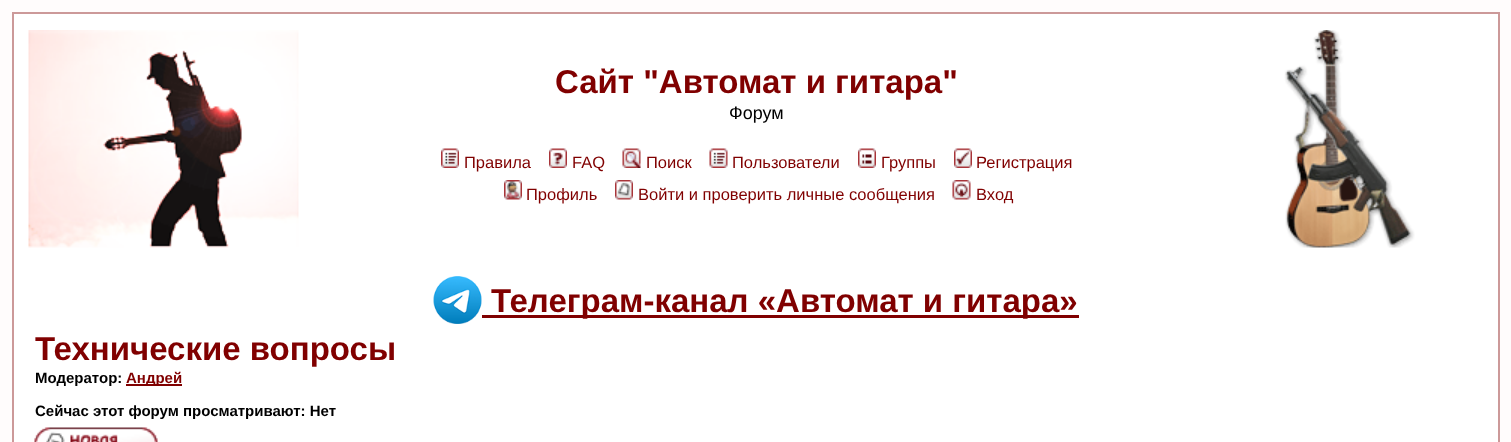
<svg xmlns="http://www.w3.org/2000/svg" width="1511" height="442">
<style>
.a{font:bold 33px Liberation Sans;fill:#800000}
.b{font:18px Liberation Sans;fill:#000}
.c{font:16.5px Liberation Sans;fill:#800000}
.d{font:bold 15px Liberation Sans;fill:#000}
.e{font:bold 15px Liberation Sans;fill:#800000}
</style>
<rect width="100%" height="100%" fill="#fffcfc"/>
<path fill="#fff" stroke="#c99" stroke-width="2" d="M13 13h1486v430H13z"/>
<image href="1.png" x="28" y="30" width="271" height="218"/>
<image href="2.png" x="441" y="148" width="18" height="20"/>
<image href="3.png" x="549" y="148" width="18" height="20"/>
<image href="4.png" x="622" y="148" width="19" height="20"/>
<image href="5.png" x="709" y="148" width="19" height="20"/>
<image href="6.png" x="858" y="148" width="18" height="20"/>
<image href="7.png" x="954" y="148" width="18" height="20"/>
<image href="8.png" x="504" y="180" width="18" height="20"/>
<image href="9.png" x="615" y="180" width="18" height="20"/>
<image href="10.png" x="952" y="180" width="19" height="20"/>
<image href="11.png" x="1284" y="30" width="131" height="218"/>
<image href="12.png" x="433" y="276" width="49" height="48"/>
<path fill="#800000" d="M482 315h597v3H482z"/>
<path fill="#800000" d="M126 384h56v2H126z"/>
<image href="13.png" x="34" y="427" width="124" height="15"/>
<text class="a" x="555" y="93">Сайт "Автомат и гитара"</text>
<text class="b" x="729" y="119">Форум</text>
<text class="c" x="464" y="168">Правила</text>
<text class="c" x="572" y="168">FAQ</text>
<text class="c" x="646" y="168">Поиск</text>
<text class="c" x="732" y="168">Пользователи</text>
<text class="c" x="881" y="168">Группы</text>
<text class="c" x="976" y="168">Регистрация</text>
<text class="c" x="526" y="200">Профиль</text>
<text class="c" x="638" y="200">Войти и проверить личные сообщения</text>
<text class="c" x="976" y="200">Вход</text>
<text class="a" x="491" y="312">Телеграм-канал «Автомат и гитара»</text>
<text class="a" x="35" y="360">Технические вопросы</text>
<text class="d" x="35" y="383">Модератор:</text>
<text class="e" x="126" y="383">Андрей</text>
<text class="d" x="35" y="416">Сейчас этот форум просматривают: Нет</text>
</svg>
